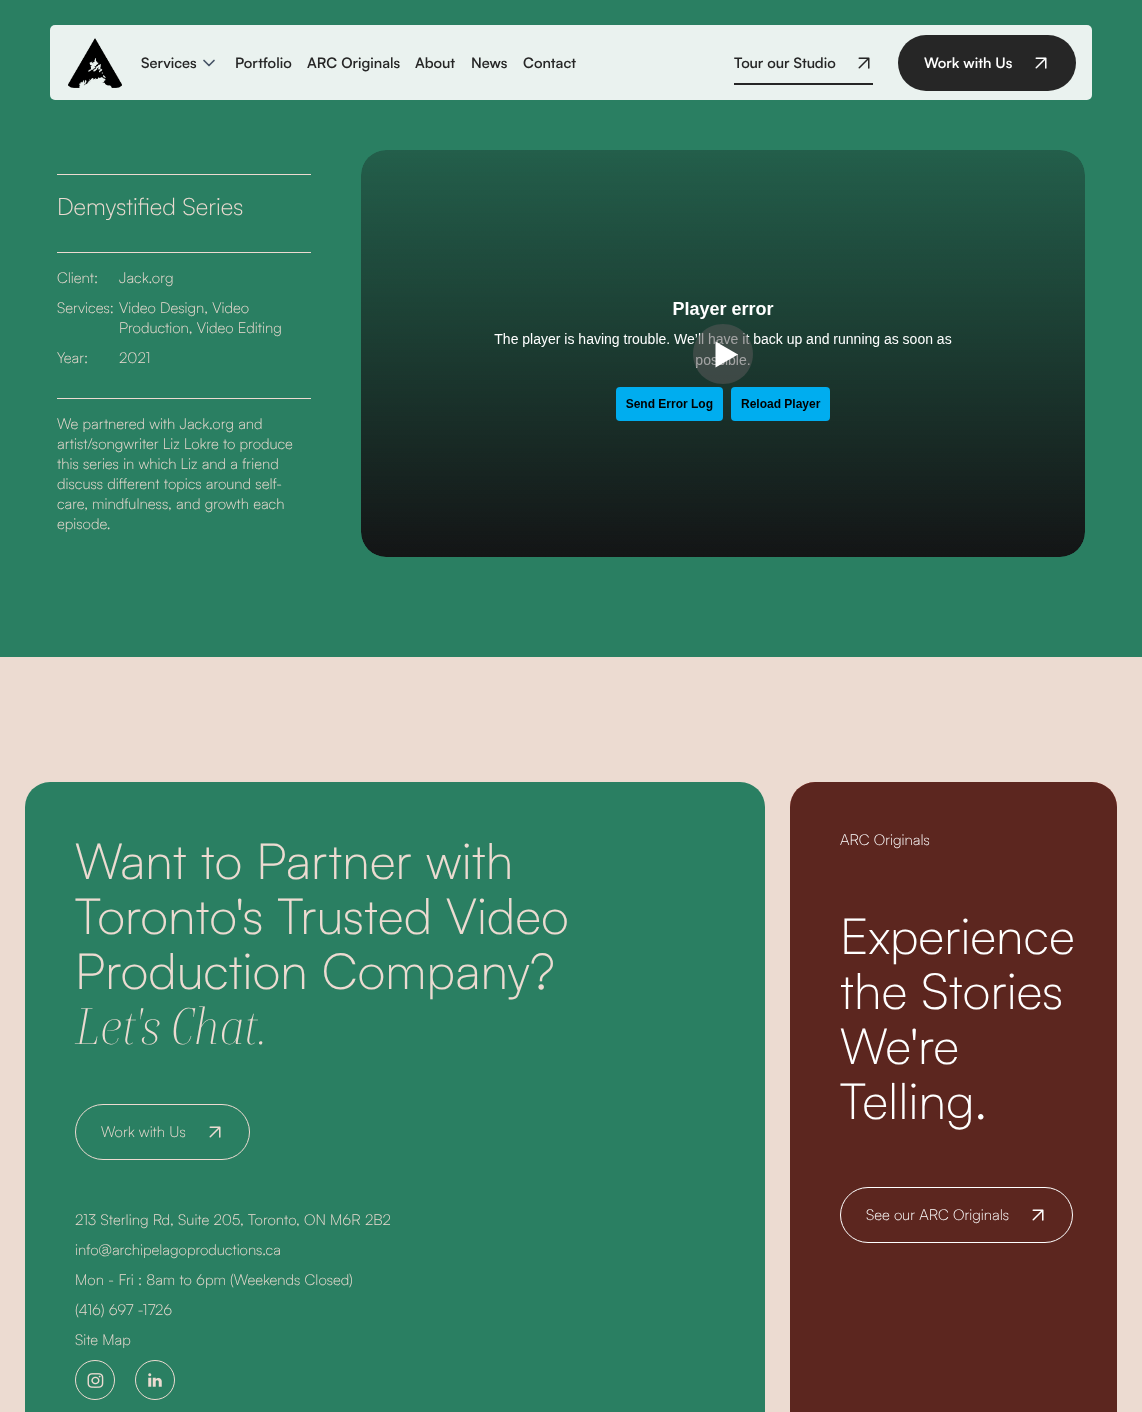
<svg xmlns="http://www.w3.org/2000/svg" width="1142" height="1412">
<style>
.a{font:600 14.5px Satoshi;fill:#262626}
.b{font:600 14.5px Satoshi;fill:#fff}
.c{font:300 24px Satoshi;fill:#ecdbd1}
.d{font:300 15px Satoshi;fill:#ecdbd1}
.e{font:300 50px Satoshi;fill:#ecdbd1}
.f{font:italic 300 50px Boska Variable;fill:#ecdbd1}
.g{font:300 15px Satoshi;fill:#fff}
.h{font:300 50px Satoshi;fill:#fff}
</style>
<rect width="100%" height="100%" fill="#ecdbd1"/>
<path fill="#2a7f62" d="M0 0h1142v657H0z"/>
<rect fill="#eaf2ef" x="50" y="25" width="1042" height="75" rx="5"/>
<image href="1.png" x="68" y="38" width="54" height="50"/>
<path fill="none" stroke="#475467" stroke-width="1.7" stroke-linecap="round" stroke-linejoin="round" d="M204 60.5l5 5l5-5"/>
<image href="2.png" x="858" y="57" width="12" height="12"/>
<path fill="#262626" d="M734 83h139v2H734z"/>
<rect fill="#262626" x="898" y="35" width="178" height="56" rx="28"/>
<image href="3.png" x="1035" y="57" width="12" height="12"/>
<path fill="#ecdbd1" d="M57 174h254v1H57z"/>
<path fill="#ecdbd1" d="M57 252h254v1H57z"/>
<path fill="#ecdbd1" d="M57 398h254v1H57z"/>
<image href="4.png" x="361" y="150" width="724" height="407"/>
<circle fill="#33333380" cx="723" cy="354" r="30"/>
<path fill="#ffffff1a" d="M723 324c17 0 30 13 30 30c0 17-13 30-30 30c-17 0-30-13-30-30c0-17 13-30 30-30z"/>
<path fill="#fff" d="M738 354.5l-22.5-13v26z"/>
<rect fill="#2a7f62" x="25" y="782" width="740" height="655" rx="25"/>
<rect fill="none" stroke="#ecdbd1" x="75.5" y="1104.5" width="174" height="55" rx="27.5"/>
<image href="5.png" x="209" y="1126" width="12" height="12"/>
<circle fill="none" stroke="#ecdbd1" cx="95" cy="1380" r="19.5"/>
<image href="6.png" x="87" y="1373" width="17" height="15"/>
<circle fill="none" stroke="#ecdbd1" cx="155" cy="1380" r="19.5"/>
<image href="7.png" x="148" y="1373" width="14" height="14"/>
<rect fill="#e75f4f" x="790" y="782" width="327" height="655" rx="25"/>
<rect fill="#00000099" x="790" y="782" width="327" height="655" rx="25"/>
<rect fill="none" stroke="#fff" x="840.5" y="1187.5" width="232" height="55" rx="27.5"/>
<image href="8.png" x="1032" y="1209" width="12" height="12"/>
<text class="a" x="141" y="68">Services</text>
<text class="a" x="235" y="68">Portfolio</text>
<text class="a" x="307" y="68">ARC Originals</text>
<text class="a" x="415" y="68">About</text>
<text class="a" x="471" y="68">News</text>
<text class="a" x="523" y="68">Contact</text>
<text class="a" x="734" y="68">Tour our Studio</text>
<text class="b" x="924" y="68">Work with Us</text>
<text class="c" x="57" y="215">Demystified Series</text>
<text class="d" x="57" y="283">Client:</text>
<text class="d" x="119" y="283">Jack.org</text>
<text class="d" x="57" y="313">Services:</text>
<text class="d" x="119" y="313">Video Design, Video</text>
<text class="d" x="119" y="333">Production, Video Editing</text>
<text class="d" x="57" y="363">Year:</text>
<text class="d" x="119" y="363">2021</text>
<text class="d" x="57" y="429">We partnered with Jack.org and</text>
<text class="d" x="57" y="449">artist/songwriter Liz Lokre to produce</text>
<text class="d" x="57" y="469">this series in which Liz and a friend</text>
<text class="d" x="57" y="489">discuss different topics around self-</text>
<text class="d" x="57" y="509">care, mindfulness, and growth each</text>
<text class="d" x="57" y="529">episode.</text>
<text class="e" x="75" y="879">Want to Partner with</text>
<text class="e" x="75" y="934">Toronto's Trusted Video</text>
<text class="e" x="75" y="989">Production Company?</text>
<text class="f" x="75" y="1044">Let's Chat.</text>
<text class="d" x="101" y="1137">Work with Us</text>
<text class="d" x="75" y="1225">213 Sterling Rd, Suite 205, Toronto, ON M6R 2B2</text>
<text class="d" x="75" y="1255">info@archipelagoproductions.ca</text>
<text class="d" x="75" y="1285">Mon - Fri : 8am to 6pm (Weekends Closed)</text>
<text class="d" x="75" y="1315">(416) 697 -1726</text>
<text class="d" x="75" y="1345">Site Map</text>
<text class="g" x="840" y="845">ARC Originals</text>
<text class="h" x="840" y="954">Experience</text>
<text class="h" x="840" y="1009">the Stories</text>
<text class="h" x="840" y="1064">We're</text>
<text class="h" x="840" y="1119">Telling.</text>
<text class="g" x="866" y="1220">See our ARC Originals</text>
</svg>
